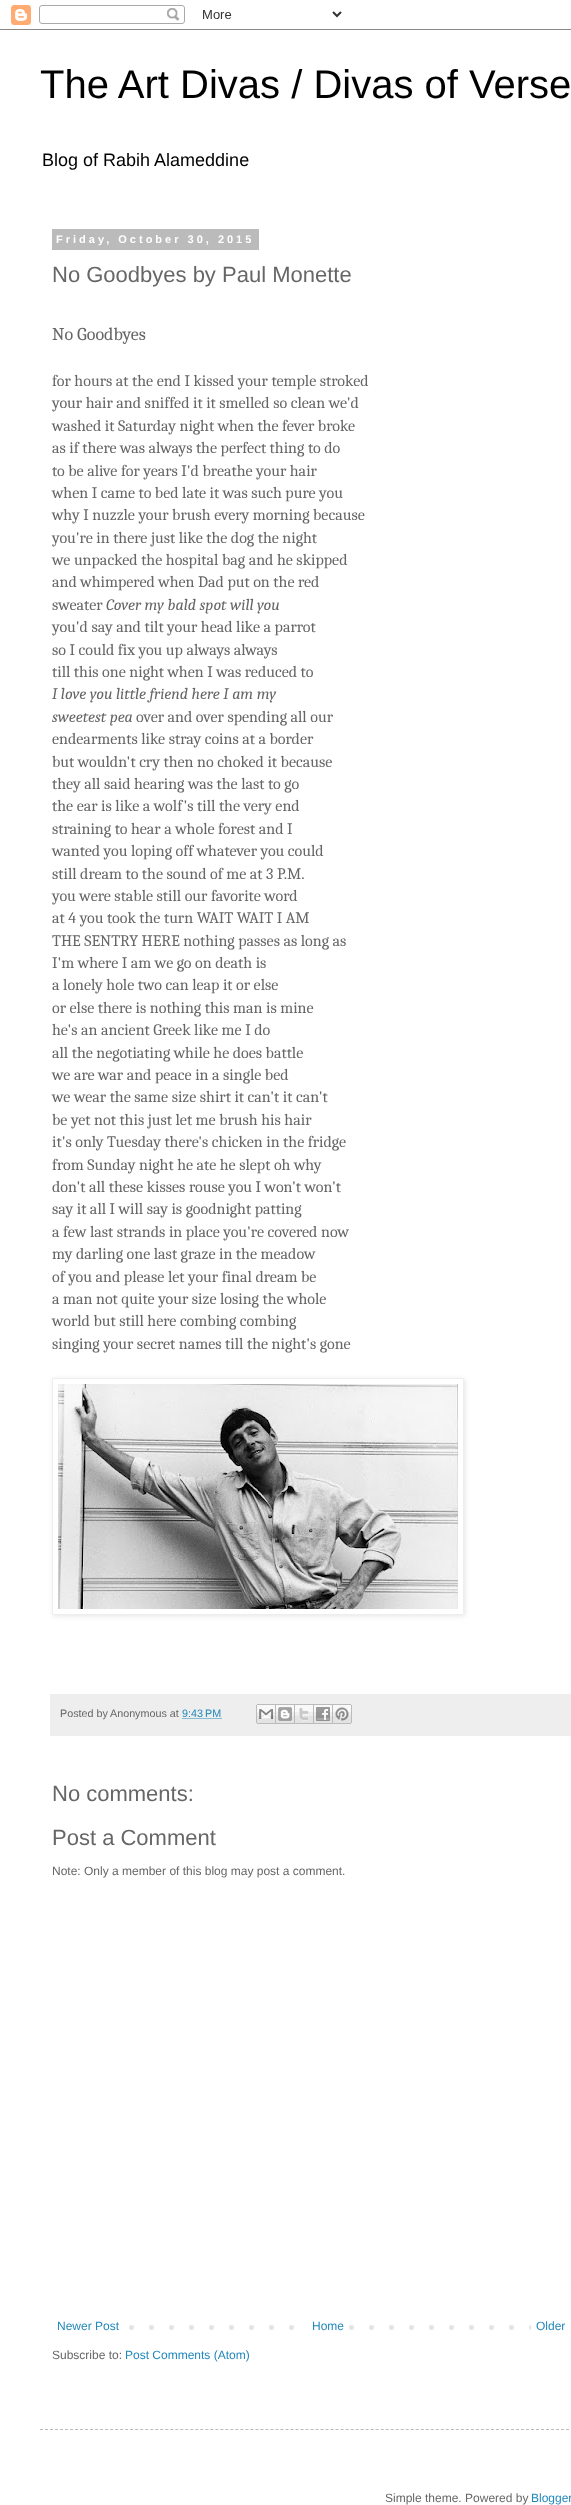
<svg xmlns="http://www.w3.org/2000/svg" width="571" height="2505">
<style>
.a{font:40px Liberation Sans;fill:#000}
.b{font:18px Liberation Sans;fill:#000}
.c{font:bold 11px Liberation Sans;letter-spacing:3px;fill:#fff}
.d{font:22px Liberation Sans;fill:#666}
.e{font:18px Caladea;fill:#666}
.f{font:16px Caladea;fill:#666}
.g{font:italic 16px Caladea;fill:#666}
.h{font:10.75px Liberation Sans;fill:#666}
.i{font:10.75px Liberation Sans;fill:#28b}
.j{font:12px Liberation Sans;fill:#666}
.k{font:12px Liberation Sans;fill:#28b}
</style>
<defs>
<clipPath id="clip1"><path d="M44 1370h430v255h-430zm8 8h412v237h-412z" clip-rule="evenodd"/></clipPath>
</defs>
<rect width="100%" height="100%" fill="#fff"/>
<image href="1.png" x="0" y="5" width="571" height="25"/>
<path fill="#bbb" d="M52 229h207v21H52z"/>
<g clip-path="url(#clip1)">
<path fill="#0000001a" filter="blur(2.5px)" d="M53 1379h412v237H53z"/>
</g>
<path fill="none" stroke="#eee" d="M52.5 1378.5h411v236H52.5z"/>
<image href="2.png" x="58" y="1384" width="400" height="225"/>
<path fill="#eee" d="M50 1694h521v42H50z"/>
<path fill="none" stroke="#28b" stroke-dasharray="1 1" d="M182.5 1718.5h39.5"/>
<image href="3.png" x="256" y="1704" width="20" height="20"/>
<image href="4.png" x="276" y="1704" width="19" height="20"/>
<image href="5.png" x="295" y="1704" width="19" height="20"/>
<image href="6.png" x="314" y="1704" width="19" height="20"/>
<image href="7.png" x="333" y="1704" width="19" height="20"/>
<image href="8.png" x="129" y="2325" width="402" height="5"/>
<path fill="#fff" d="M309 2325h26v5H309z"/>
<path fill="none" stroke="#bbb" stroke-dasharray="3 2.01" d="M40 2429.5h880"/>
<text class="a" x="40" y="98">The Art Divas / Divas of Verse</text>
<text class="b" x="42" y="166">Blog of Rabih Alameddine</text>
<text class="c" x="56" y="243">Friday, October 30, 2015</text>
<text class="d" x="52" y="282">No Goodbyes by Paul Monette</text>
<text class="e" x="52" y="340">No Goodbyes</text>
<text class="f" x="52" y="386">for hours at the end I kissed your temple stroked</text>
<text class="f" x="52" y="408">your hair and sniffed it it smelled so clean we'd</text>
<text class="f" x="52" y="431">washed it Saturday night when the fever broke</text>
<text class="f" x="52" y="453">as if there was always the perfect thing to do</text>
<text class="f" x="52" y="476">to be alive for years I'd breathe your hair</text>
<text class="f" x="52" y="498">when I came to bed late it was such pure you</text>
<text class="f" x="52" y="520">why I nuzzle your brush every morning because</text>
<text class="f" x="52" y="543">you're in there just like the dog the night</text>
<text class="f" x="52" y="565">we unpacked the hospital bag and he skipped</text>
<text class="f" x="52" y="587">and whimpered when Dad put on the red</text>
<text class="f" x="52" y="610">sweater</text>
<text class="g" x="106" y="610">Cover my bald spot will you</text>
<text class="f" x="52" y="632">you'd say and tilt your head like a parrot</text>
<text class="f" x="52" y="655">so I could fix you up always always</text>
<text class="f" x="52" y="677">till this one night when I was reduced to</text>
<text class="g" x="52" y="699">I love you little friend here I am my</text>
<text class="g" x="52" y="722">sweetest pea</text>
<text class="f" x="136" y="722">over and over spending all our</text>
<text class="f" x="52" y="744">endearments like stray coins at a border</text>
<text class="f" x="52" y="767">but wouldn't cry then no choked it because</text>
<text class="f" x="52" y="789">they all said hearing was the last to go</text>
<text class="f" x="52" y="811">the ear is like a wolf's till the very end</text>
<text class="f" x="52" y="834">straining to hear a whole forest and I</text>
<text class="f" x="52" y="856">wanted you loping off whatever you could</text>
<text class="f" x="52" y="879">still dream to the sound of me at 3 P.M.</text>
<text class="f" x="52" y="901">you were stable still our favorite word</text>
<text class="f" x="52" y="923">at 4 you took the turn WAIT WAIT I AM</text>
<text class="f" x="52" y="946">THE SENTRY HERE nothing passes as long as</text>
<text class="f" x="52" y="968">I'm where I am we go on death is</text>
<text class="f" x="52" y="990">a lonely hole two can leap it or else</text>
<text class="f" x="52" y="1013">or else there is nothing this man is mine</text>
<text class="f" x="52" y="1035">he's an ancient Greek like me I do</text>
<text class="f" x="52" y="1058">all the negotiating while he does battle</text>
<text class="f" x="52" y="1080">we are war and peace in a single bed</text>
<text class="f" x="52" y="1102">we wear the same size shirt it can't it can't</text>
<text class="f" x="52" y="1125">be yet not this just let me brush his hair</text>
<text class="f" x="52" y="1147">it's only Tuesday there's chicken in the fridge</text>
<text class="f" x="52" y="1170">from Sunday night he ate he slept oh why</text>
<text class="f" x="52" y="1192">don't all these kisses rouse you I won't won't</text>
<text class="f" x="52" y="1214">say it all I will say is goodnight patting</text>
<text class="f" x="52" y="1237">a few last strands in place you're covered now</text>
<text class="f" x="52" y="1259">my darling one last graze in the meadow</text>
<text class="f" x="52" y="1282">of you and please let your final dream be</text>
<text class="f" x="52" y="1304">a man not quite your size losing the whole</text>
<text class="f" x="52" y="1326">world but still here combing combing</text>
<text class="f" x="52" y="1349">singing your secret names till the night's gone</text>
<text class="h" x="60" y="1717">Posted by</text>
<text class="h" x="110" y="1717">Anonymous at</text>
<text class="i" x="182" y="1717">9:43 PM</text>
<text class="d" x="52" y="1801">No comments:</text>
<text class="d" x="52" y="1845">Post a Comment</text>
<text class="j" x="52" y="1875">Note: Only a member of this blog may post a comment.</text>
<text class="k" x="57" y="2330">Newer Post</text>
<text class="k" x="312" y="2330">Home</text>
<text class="k" x="536" y="2330">Older</text>
<text class="j" x="52" y="2359">Subscribe to:</text>
<text class="k" x="125" y="2359">Post Comments (Atom)</text>
<text class="j" x="385" y="2502">Simple theme. Powered by</text>
<text class="k" x="531" y="2502">Blogger</text>
</svg>
